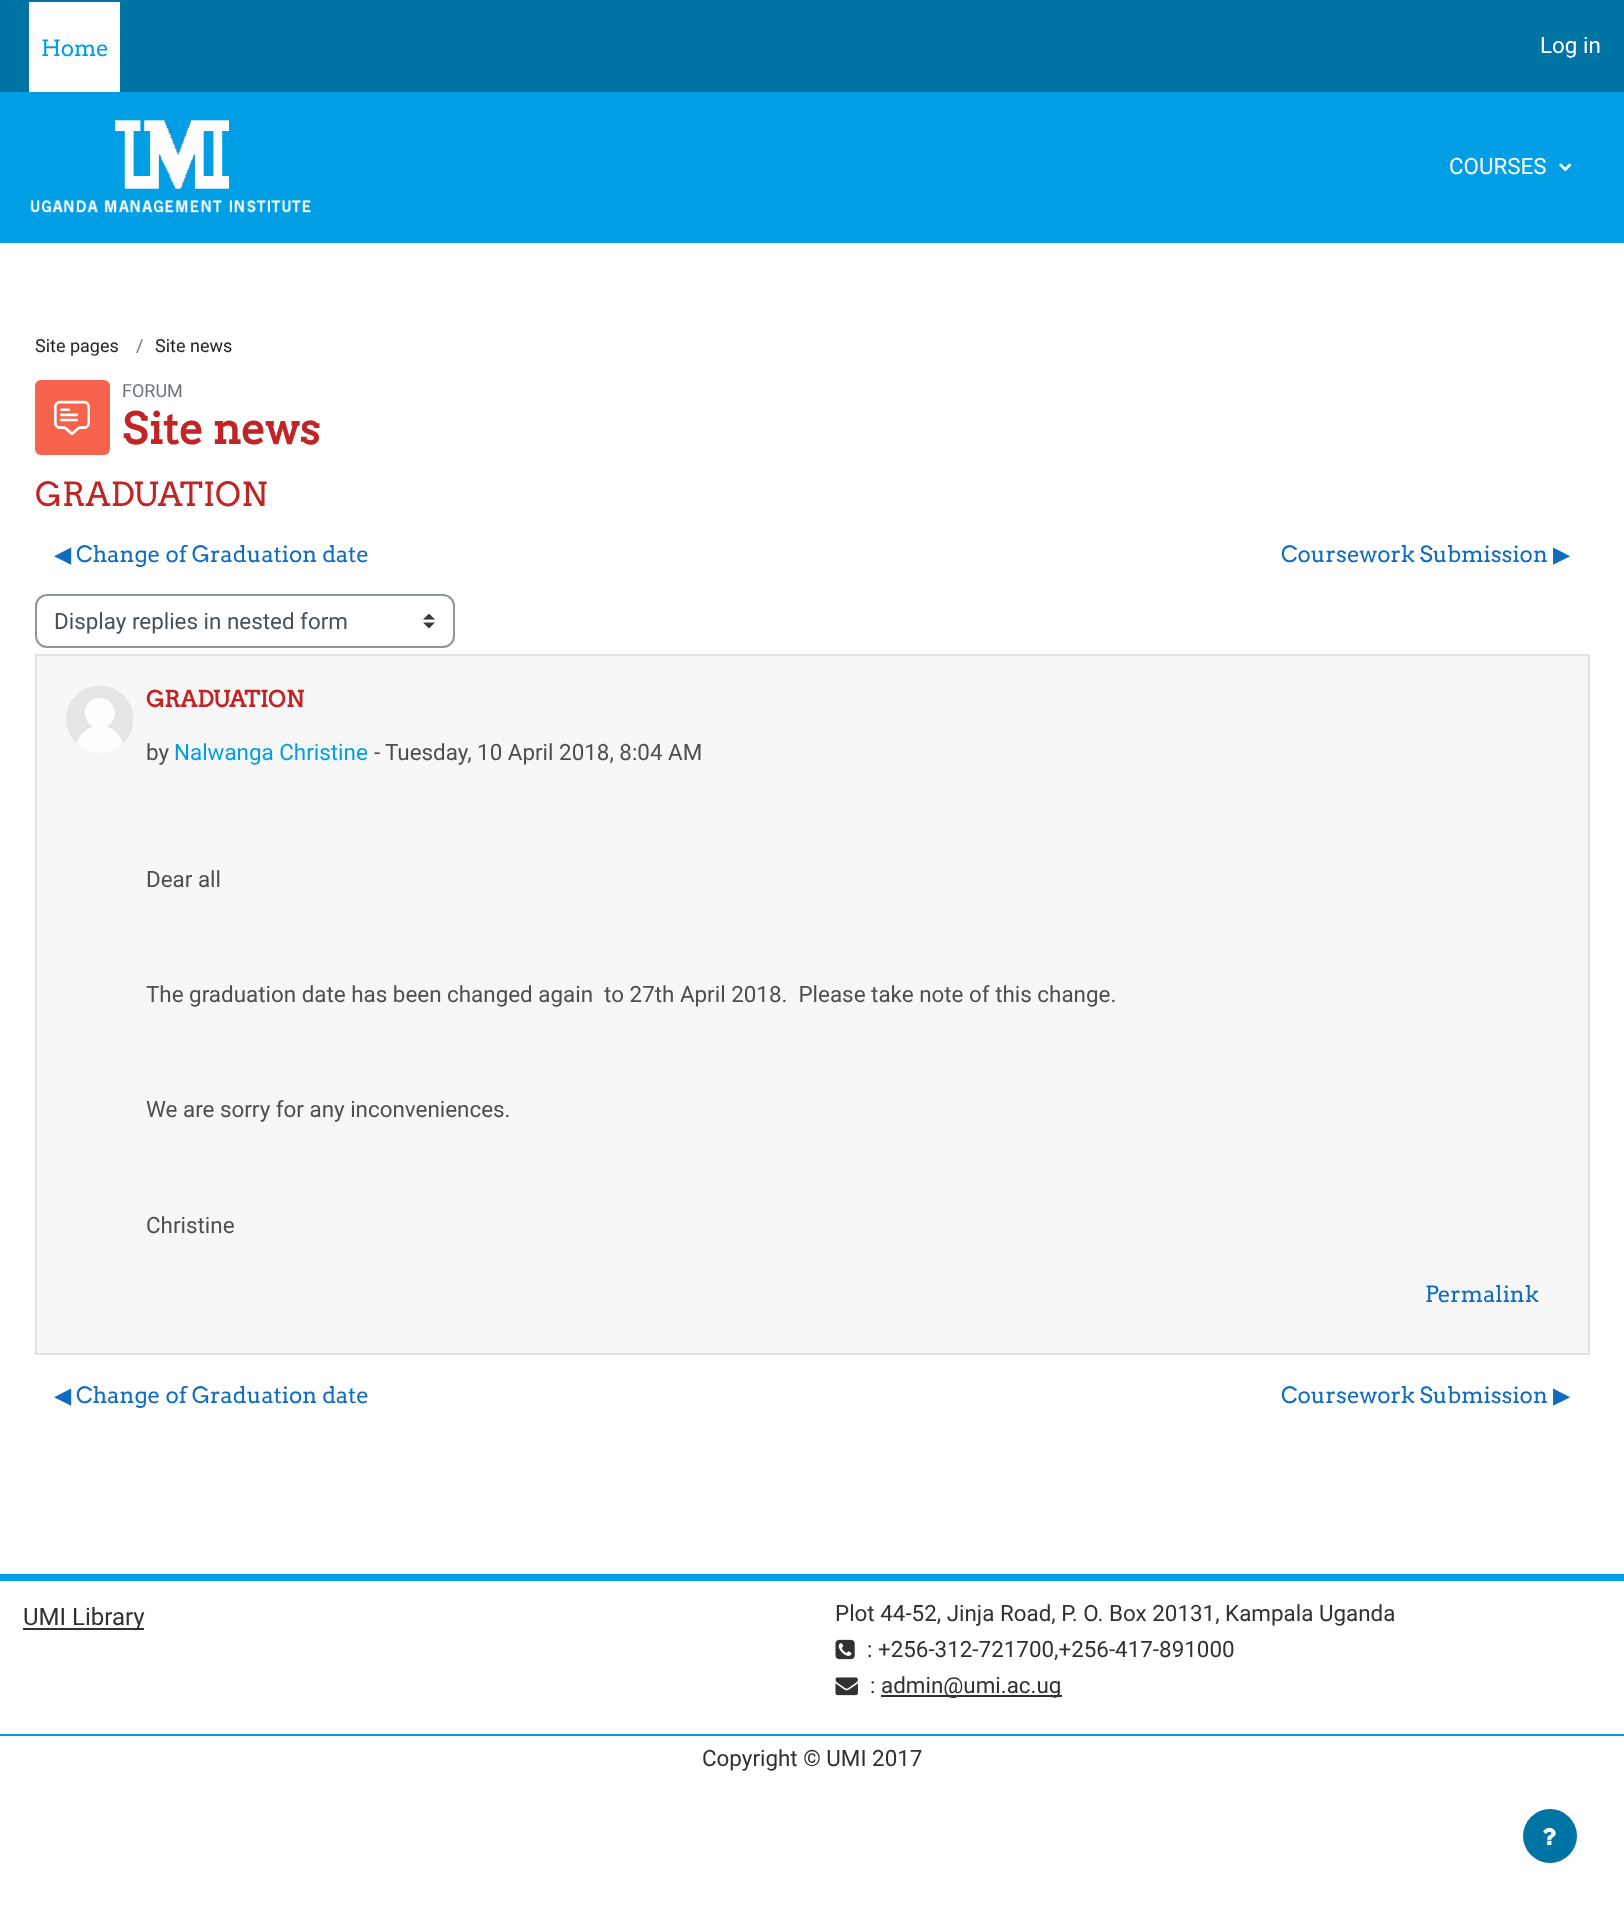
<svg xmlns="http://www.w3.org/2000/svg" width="1624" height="1911">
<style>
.a{font:22.4px Arvo;fill:#009fe5}
.b{font:22.4px Roboto;fill:#fff}
.c{font:18px Roboto;fill:#232323}
.d{font:18px Roboto;fill:#6a737b}
.e{font:bold 43px Arvo;fill:#c02424}
.f{font:33px Arvo;fill:#c02424}
.g{font:22.4px DejaVu Sans;fill:#0f6cbf}
.h{font:22.4px Arvo;fill:#0f6cbf}
.i{font:22.4px Roboto;fill:#495057}
.j{font:bold 22.4px Arvo;fill:#c02424}
.k{font:22.4px Roboto;fill:#4e4e4e}
.l{font:22.4px Roboto;fill:#009fe5}
.m{font:24px Roboto;fill:#313131}
.n{font:22.4px Roboto;fill:#313131}
</style>
<rect width="100%" height="100%" fill="#fff"/>
<path fill="#0073a5" d="M0 0h1624v92H0z"/>
<path fill="#fff" d="M29 2h91v90H29z"/>
<path fill="#009fe5" d="M0 92h1624v151H0z"/>
<image href="1.png" x="30" y="120" width="281" height="93"/>
<image href="2.png" x="1559" y="163" width="13" height="9"/>
<rect fill="#f7634d" x="35" y="380" width="75" height="75" rx="6"/>
<image href="3.png" x="54" y="400" width="36" height="35"/>
<image href="4.png" x="423" y="614" width="12" height="15"/>
<rect fill="none" stroke="#8f959e" stroke-width="2" x="36" y="595" width="418" height="52" rx="11"/>
<path fill="#f7f7f7" stroke="#dee2e6" stroke-width="2" d="M36 655h1553v699H36z"/>
<image href="5.png" x="66" y="686" width="68" height="67"/>
<path fill="#009fe5" d="M0 1574h1624v7H0z"/>
<path fill="#313131" d="M23 1628h121v2H23z"/>
<image href="6.png" x="835" y="1639" width="20" height="21"/>
<image href="7.png" x="835" y="1677" width="23" height="19"/>
<path fill="#313131" d="M881 1695h181v2H881z"/>
<path fill="#009fe5" d="M0 1734h1624v2H0z"/>
<circle fill="#0073a5" cx="1550" cy="1836" r="27"/>
<image href="8.png" x="1543" y="1827" width="13" height="18"/>
<text class="a" x="41" y="56">Home</text>
<text class="b" x="1540" y="53">Log in</text>
<text class="b" x="1449" y="174">COURSES</text>
<text class="c" x="35" y="352">Site pages</text>
<text class="d" x="136" y="352">/</text>
<text class="c" x="155" y="352">Site news</text>
<text class="d" x="122" y="397">FORUM</text>
<text class="e" x="122" y="444">Site news</text>
<text class="f" x="35" y="506">GRADUATION</text>
<text class="g" x="54" y="562">◀︎</text>
<text class="h" x="76" y="562">Change of Graduation date</text>
<text class="h" x="1281" y="562">Coursework Submission</text>
<text class="g" x="1553" y="562">▶︎</text>
<text class="i" x="54" y="629">Display replies in nested form</text>
<text class="j" x="146" y="707">GRADUATION</text>
<text class="k" x="146" y="760">by</text>
<text class="l" x="174" y="760">Nalwanga Christine</text>
<text class="k" x="374" y="760">-</text>
<text class="k" x="385" y="760">Tuesday, 10 April 2018, 8:04 AM</text>
<text class="k" x="146" y="887">Dear all</text>
<text class="k" xml:space="preserve" x="146" y="1002">The graduation date has been changed again  to 27th April 2018.  Please take note of this change.</text>
<text class="k" x="146" y="1117">We are sorry for any inconveniences.</text>
<text class="k" x="146" y="1233">Christine</text>
<text class="h" x="1425" y="1302">Permalink</text>
<text class="g" x="54" y="1403">◀︎</text>
<text class="h" x="76" y="1403">Change of Graduation date</text>
<text class="h" x="1281" y="1403">Coursework Submission</text>
<text class="g" x="1553" y="1403">▶︎</text>
<text class="m" x="23" y="1625">UMI Library</text>
<text class="n" x="835" y="1621">Plot 44-52, Jinja Road, P. O. Box 20131, Kampala Uganda</text>
<text class="n" x="867" y="1657">: +256-312-721700,+256-417-891000</text>
<text class="n" x="870" y="1693">:</text>
<text class="n" x="881" y="1693">admin@umi.ac.ug</text>
<text class="n" x="702" y="1766">Copyright © UMI 2017</text>
</svg>
